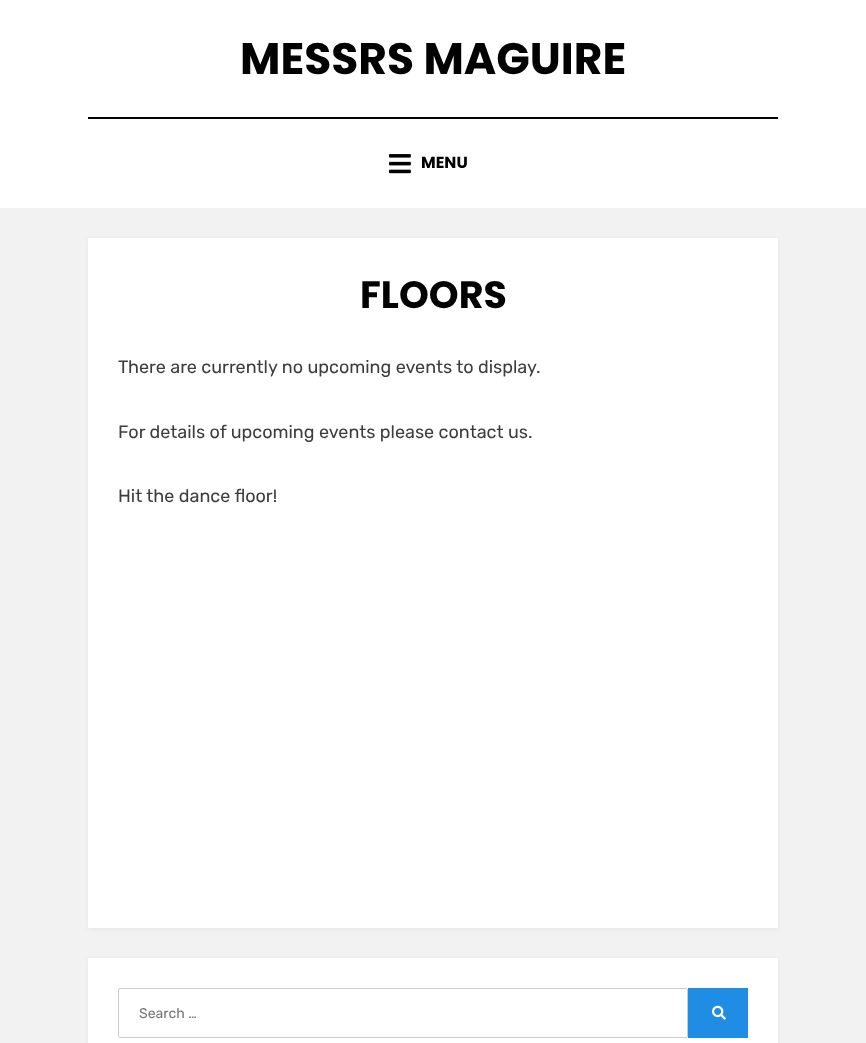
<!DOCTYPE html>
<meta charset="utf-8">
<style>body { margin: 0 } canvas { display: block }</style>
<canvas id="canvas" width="866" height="1043"></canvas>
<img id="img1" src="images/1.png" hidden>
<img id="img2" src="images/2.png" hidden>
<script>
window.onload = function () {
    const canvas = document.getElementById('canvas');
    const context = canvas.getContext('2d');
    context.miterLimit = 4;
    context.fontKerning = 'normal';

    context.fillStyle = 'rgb(242, 242, 242)';
    context.fillRect(0, 0, 866, 1043);
    context.fillStyle = 'rgb(255, 255, 255)';
    context.fillRect(0, 0, 866, 208);
    context.fillStyle = 'rgb(2, 2, 2)';
    context.fillRect(88, 117, 690, 2);
    context.drawImage(document.getElementById('img1'), 389, 154, 22, 20);
    context.fillStyle = 'rgba(0, 0, 1, 0.05)';
    context.filter = 'blur(2.5px)';
    context.beginPath();
    context.rect(88, 239, 690, 690);
    context.fill();
    context.filter = 'none';
    context.fillStyle = 'rgb(255, 255, 255)';
    context.fillRect(88, 238, 690, 690);
    context.fillStyle = 'rgba(0, 0, 1, 0.05)';
    context.filter = 'blur(2.5px)';
    context.beginPath();
    context.rect(88, 959, 690, 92);
    context.fill();
    context.filter = 'none';
    context.fillStyle = 'rgb(255, 255, 255)';
    context.fillRect(88, 958, 690, 85);
    context.beginPath();
    context.roundRect(118.5, 988.5, 569, 49, 1.5);
    context.strokeStyle = 'rgb(204, 204, 204)';
    context.stroke();
    context.fillStyle = 'rgb(32, 141, 229)';
    context.fillRect(688, 988, 60, 50);
    context.drawImage(document.getElementById('img2'), 712, 1005, 14, 15);
    context.font = 'bold 44px Poppins';
    context.fillStyle = 'rgb(2, 2, 2)';
    context.fillText('MESSRS MAGUIRE', 240, 74);
    context.font = 'bold 16px Poppins';
    context.fillText('MENU', 421, 168);
    context.font = 'bold 38px Poppins';
    context.fillText('FLOORS', 360, 308);
    context.font = '18px Rubik';
    context.fillStyle = 'rgb(61, 61, 61)';
    context.fillText('There are currently no upcoming events to display.', 118, 373);
    context.fillText('For details of upcoming events please contact us.', 118, 438);
    context.fillText('Hit the dance floor!', 118, 502);
    context.font = '14px Rubik';
    context.fillStyle = 'rgb(117, 117, 117)';
    context.fillText('Search …', 139, 1018);
};
</script>
